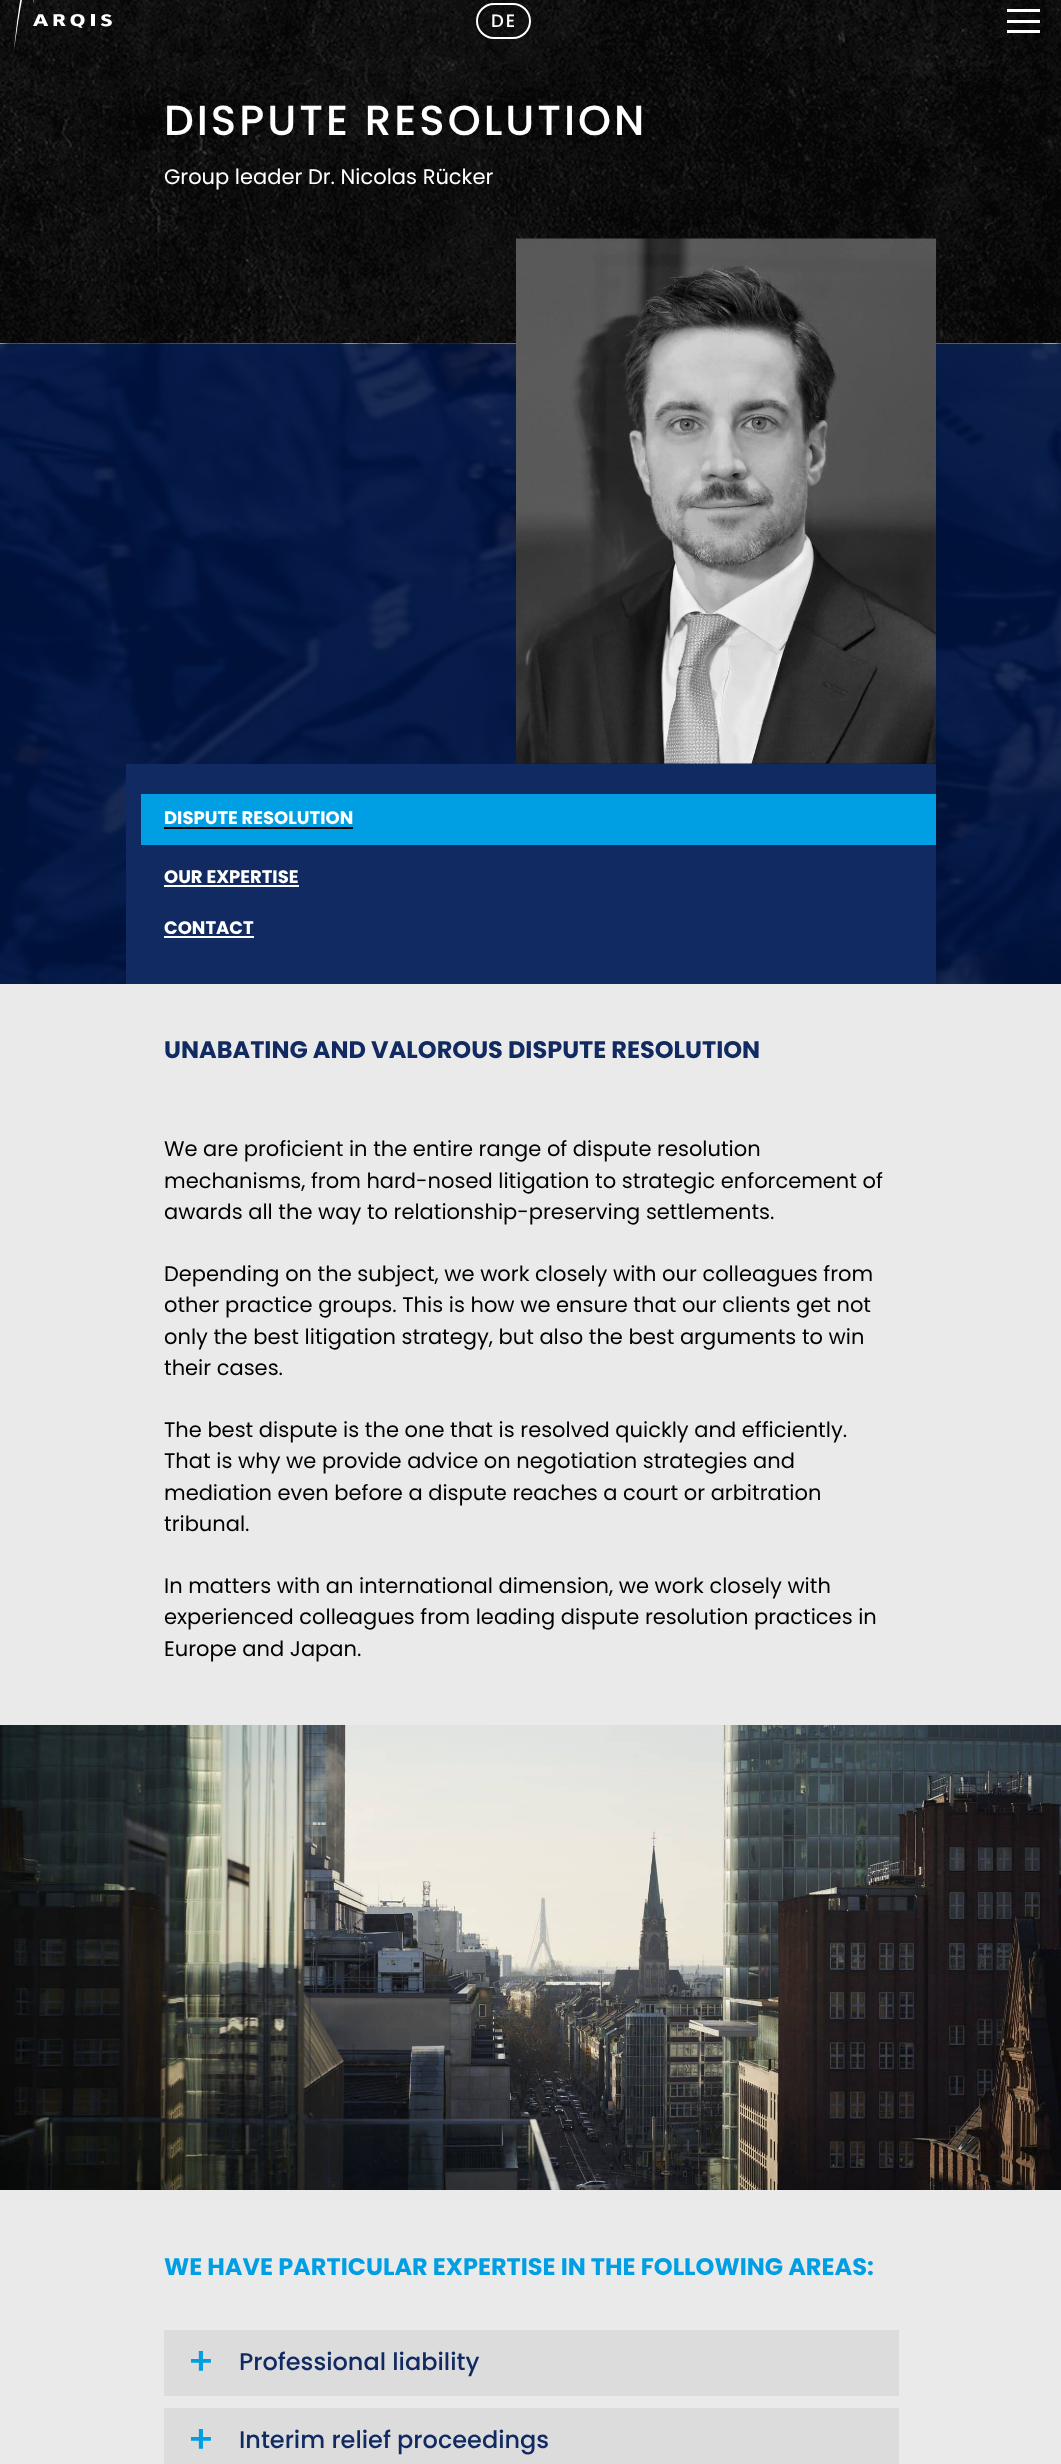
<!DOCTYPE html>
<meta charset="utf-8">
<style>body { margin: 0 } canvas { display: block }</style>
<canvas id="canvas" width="1061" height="2464"></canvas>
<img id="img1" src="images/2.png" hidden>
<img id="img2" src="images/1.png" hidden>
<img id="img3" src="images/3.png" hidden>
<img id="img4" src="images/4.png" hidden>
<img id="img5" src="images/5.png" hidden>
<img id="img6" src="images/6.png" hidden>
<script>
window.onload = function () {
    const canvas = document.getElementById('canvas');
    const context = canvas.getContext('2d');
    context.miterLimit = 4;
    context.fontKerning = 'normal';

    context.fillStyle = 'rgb(234, 234, 234)';
    context.fillRect(0, 0, 1061, 2464);
    context.drawImage(document.getElementById('img1'), 0, 0, 1061, 344);
    context.drawImage(document.getElementById('img2'), 14, 0, 98, 50);
    context.beginPath();
    context.roundRect(477, 4, 53, 34, 17);
    context.strokeStyle = 'rgb(255, 255, 255)';
    context.lineWidth = 2;
    context.stroke();
    context.fillStyle = 'rgb(255, 255, 255)';
    context.fillRect(1007, 9, 33, 3);
    context.fillRect(1007, 20, 33, 3);
    context.fillRect(1007, 30, 33, 3);
    context.drawImage(document.getElementById('img3'), 0, 343, 1061, 1);
    context.drawImage(document.getElementById('img4'), 0, 343, 1061, 641);
    context.drawImage(document.getElementById('img5'), 516, 238, 420, 526);
    context.fillStyle = 'rgb(17, 43, 98)';
    context.fillRect(126, 764, 810, 220);
    context.fillStyle = 'rgb(0, 159, 227)';
    context.fillRect(141, 794, 795, 51);
    context.fillStyle = 'rgb(0, 0, 0)';
    context.fillRect(164, 827, 189, 2);
    context.fillStyle = 'rgb(255, 255, 255)';
    context.fillRect(164, 885, 135, 2);
    context.fillRect(164, 936, 90, 2);
    context.drawImage(document.getElementById('img6'), 0, 1725, 1061, 465);
    context.fillStyle = 'rgb(220, 220, 220)';
    context.fillRect(164, 2330, 735, 66);
    context.fillRect(164, 2408, 735, 56);
    context.letterSpacing = '2px';
    context.font = '500 18px Poppins';
    context.fillStyle = 'rgb(255, 255, 255)';
    context.fillText('DE', 491, 27);
    context.letterSpacing = '3px';
    context.font = '500 42px Poppins';
    context.fillText('DISPUTE RESOLUTION', 164, 135);
    context.letterSpacing = '0px';
    context.font = '21px Poppins';
    context.fillText('Group leader Dr. Nicolas Rücker', 164, 184);
    context.font = 'bold 18px Poppins';
    context.fillText('DISPUTE RESOLUTION', 164, 824);
    context.fillText('OUR EXPERTISE', 164, 883);
    context.fillText('CONTACT', 164, 934);
    context.font = 'bold 24px Poppins';
    context.fillStyle = 'rgb(17, 43, 98)';
    context.fillText('UNABATING AND VALOROUS DISPUTE RESOLUTION', 164, 1058);
    context.font = '21px Poppins';
    context.fillStyle = 'rgb(0, 0, 0)';
    context.fillText('We are proficient in the entire range of dispute resolution', 164, 1156);
    context.fillText('mechanisms, from hard-nosed litigation to strategic enforcement of', 164, 1188);
    context.fillText('awards all the way to relationship-preserving settlements.', 164, 1219);
    context.fillText('Depending on the subject, we work closely with our colleagues from', 164, 1281);
    context.fillText('other practice groups. This is how we ensure that our clients get not', 164, 1312);
    context.fillText('only the best litigation strategy, but also the best arguments to win', 164, 1344);
    context.fillText('their cases.', 164, 1375);
    context.fillText('The best dispute is the one that is resolved quickly and efficiently.', 164, 1437);
    context.fillText('That is why we provide advice on negotiation strategies and', 164, 1468);
    context.fillText('mediation even before a dispute reaches a court or arbitration', 164, 1500);
    context.fillText('tribunal.', 164, 1531);
    context.fillText('In matters with an international dimension, we work closely with', 164, 1593);
    context.fillText('experienced colleagues from leading dispute resolution practices in', 164, 1624);
    context.fillText('Europe and Japan.', 164, 1656);
    context.font = 'bold 24px Poppins';
    context.fillStyle = 'rgb(0, 159, 227)';
    context.fillText('WE HAVE PARTICULAR EXPERTISE IN THE FOLLOWING AREAS:', 164, 2275);
    context.font = '500 39px Poppins';
    context.fillText('+', 187, 2375);
    context.font = '500 24px Poppins';
    context.fillStyle = 'rgb(17, 43, 98)';
    context.fillText('Professional liability', 239, 2370);
    context.font = '500 39px Poppins';
    context.fillStyle = 'rgb(0, 159, 227)';
    context.fillText('+', 187, 2453);
    context.font = '500 24px Poppins';
    context.fillStyle = 'rgb(17, 43, 98)';
    context.fillText('Interim relief proceedings', 239, 2448);
};
</script>
